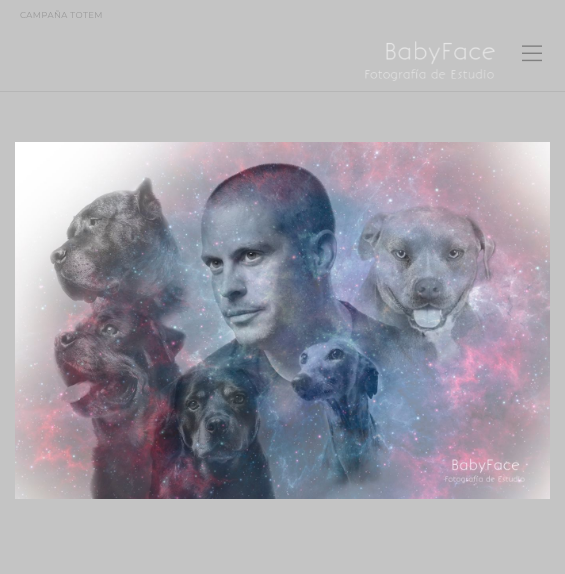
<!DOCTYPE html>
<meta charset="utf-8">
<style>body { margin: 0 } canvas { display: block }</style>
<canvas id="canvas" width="565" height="574"></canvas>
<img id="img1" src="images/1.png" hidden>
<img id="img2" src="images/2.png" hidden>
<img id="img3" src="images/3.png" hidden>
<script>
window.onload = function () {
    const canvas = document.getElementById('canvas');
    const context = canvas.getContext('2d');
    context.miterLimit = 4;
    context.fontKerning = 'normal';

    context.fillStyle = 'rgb(196, 196, 196)';
    context.fillRect(0, 0, 565, 574);
    context.fillStyle = 'rgb(182, 182, 182)';
    context.fillRect(0, 91, 565, 1);
    context.drawImage(document.getElementById('img1'), 365, 41, 130, 40);
    context.drawImage(document.getElementById('img2'), 522, 45, 20, 17);
    context.drawImage(document.getElementById('img3'), 15, 142, 535, 357);
    context.letterSpacing = '0.4px';
    context.font = '8.5px Montserrat';
    context.fillStyle = 'rgb(155, 155, 155)';
    context.fillText('CAMPAÑA TOTEM', 20, 18);
};
</script>
